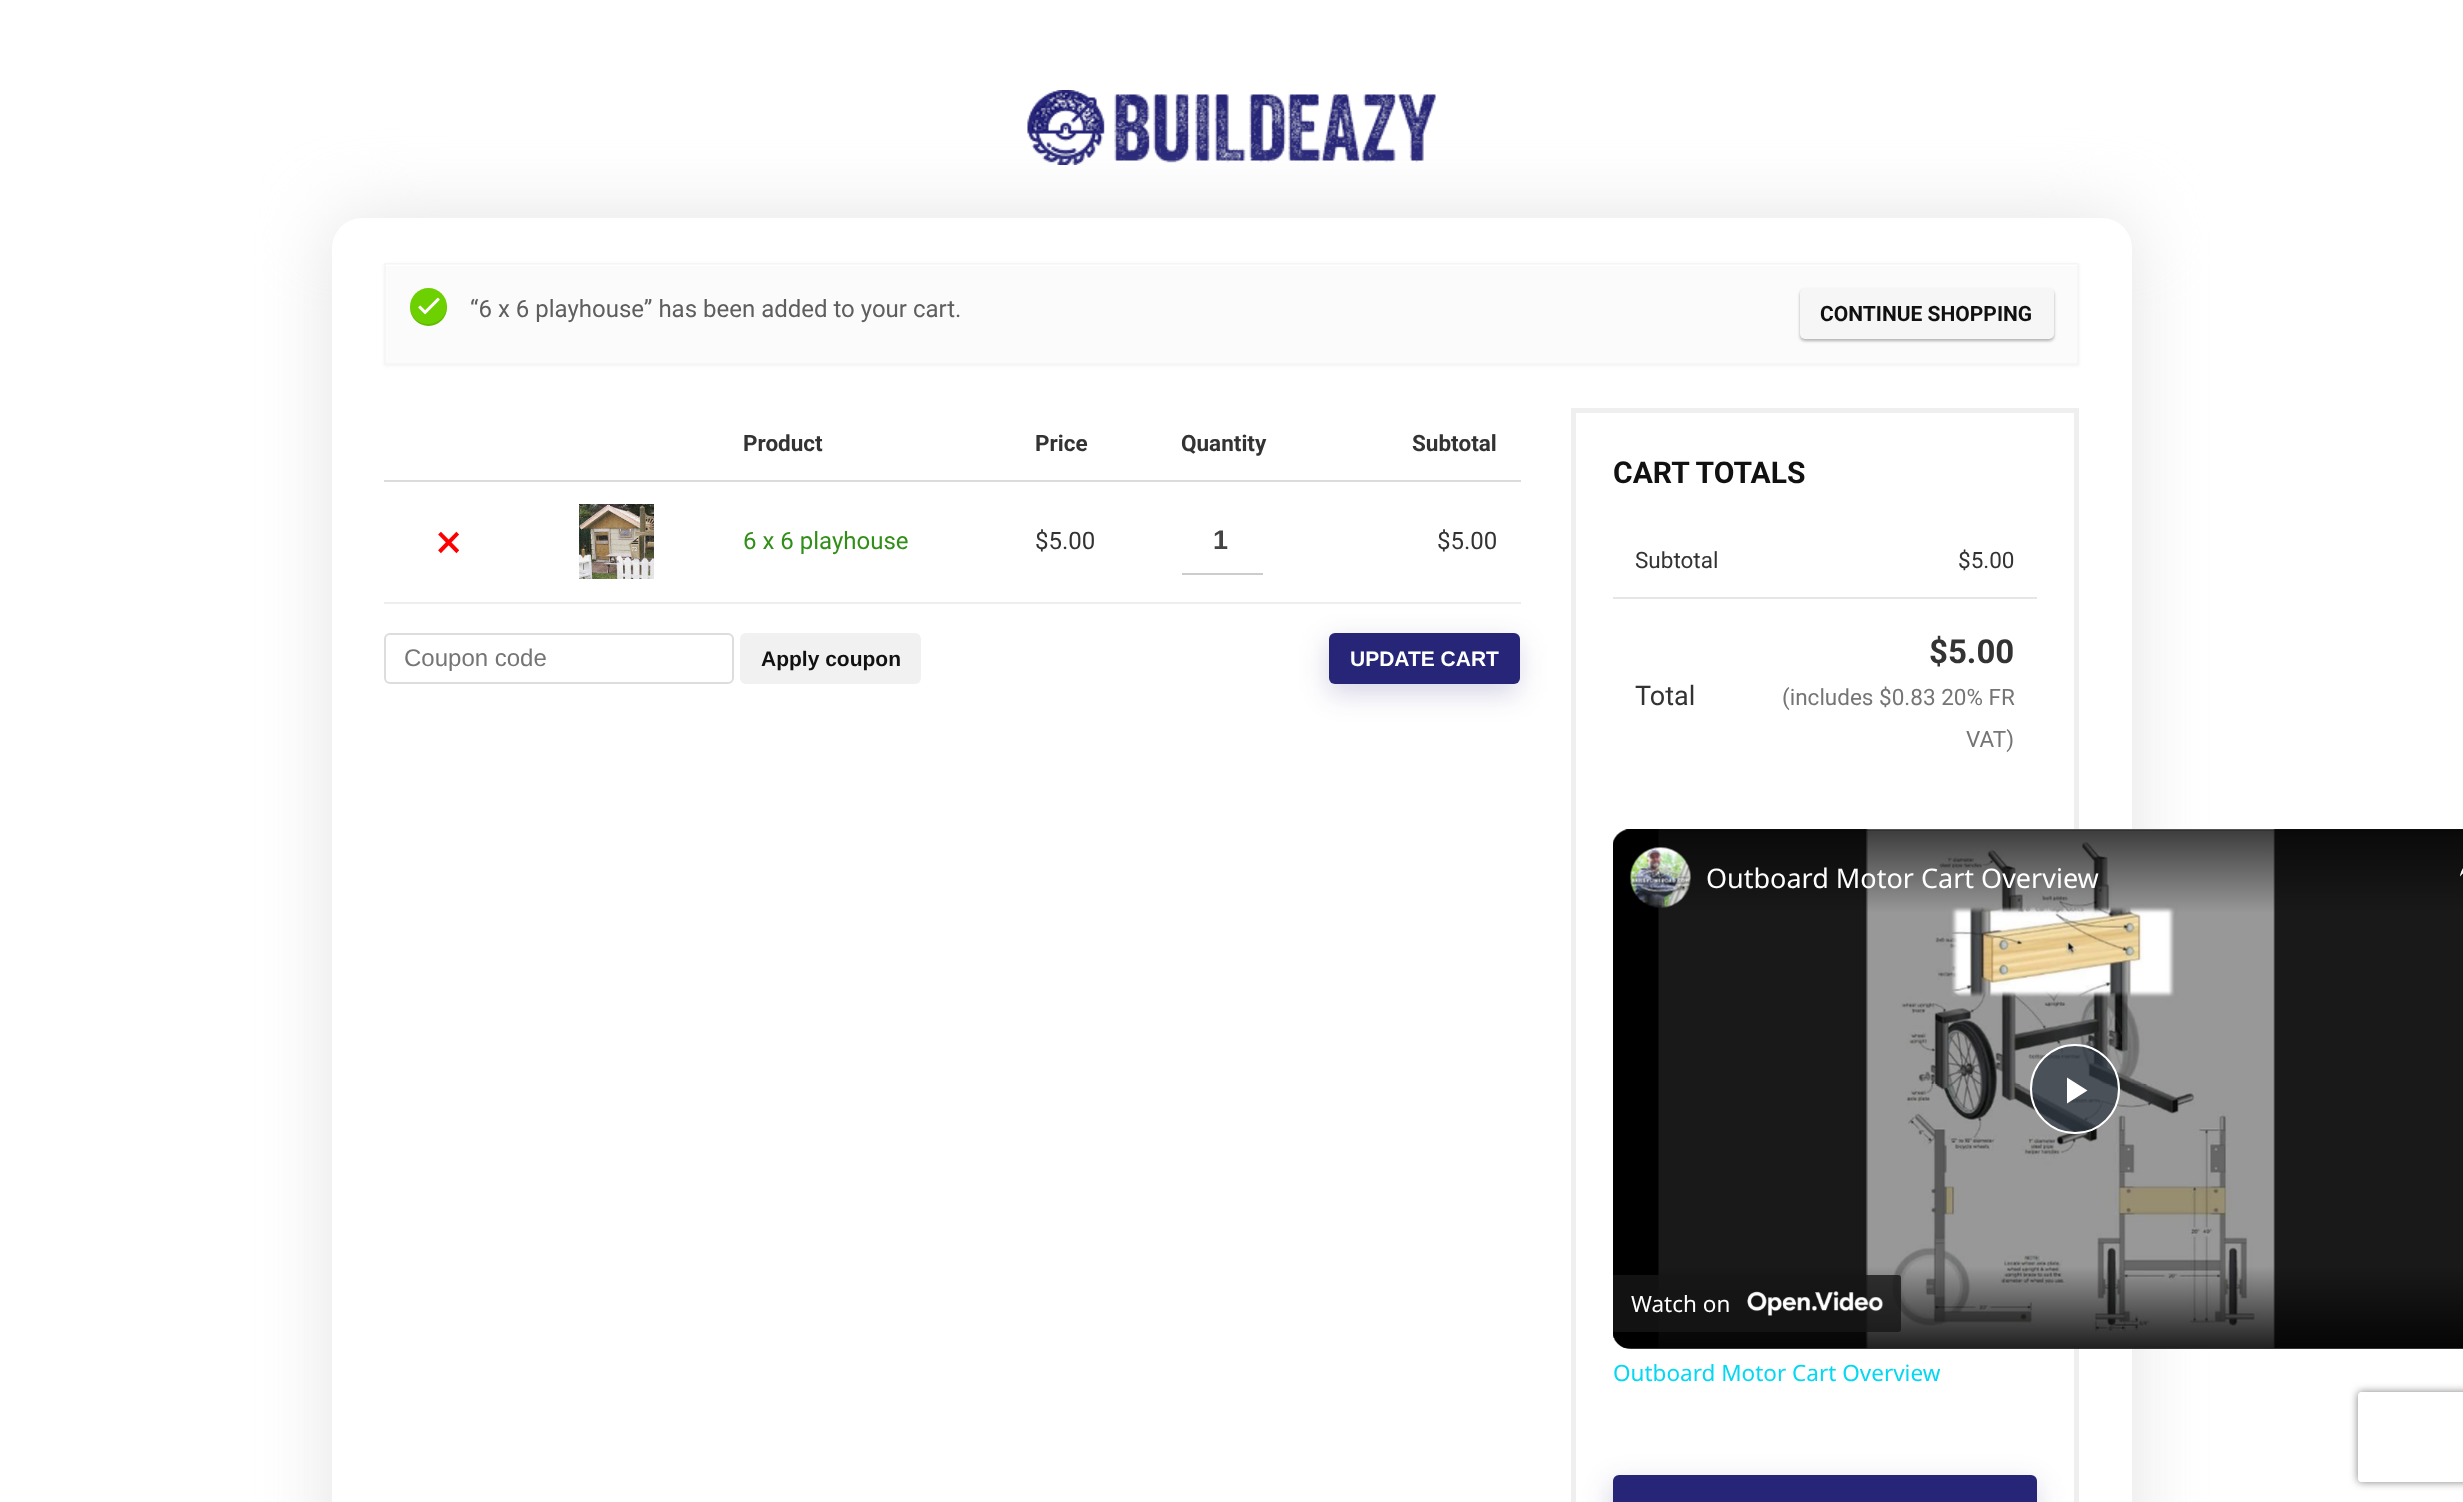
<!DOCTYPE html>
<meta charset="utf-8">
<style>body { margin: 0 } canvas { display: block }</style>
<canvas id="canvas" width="2463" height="1502"></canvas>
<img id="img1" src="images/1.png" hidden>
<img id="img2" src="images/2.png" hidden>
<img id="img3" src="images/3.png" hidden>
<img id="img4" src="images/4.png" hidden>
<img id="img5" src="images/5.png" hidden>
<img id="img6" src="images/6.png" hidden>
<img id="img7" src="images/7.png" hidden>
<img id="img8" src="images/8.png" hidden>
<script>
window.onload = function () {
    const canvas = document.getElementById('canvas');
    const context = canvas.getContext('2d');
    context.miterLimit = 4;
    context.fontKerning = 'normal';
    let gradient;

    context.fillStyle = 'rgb(255, 255, 255)';
    context.fillRect(0, 0, 2463, 1502);
    context.drawImage(document.getElementById('img1'), 1027, 90, 409, 75);
    context.fillStyle = 'rgb(227, 227, 227)';
    context.filter = 'blur(37.5px)';
    context.beginPath();
    context.roundRect(332, 218, 1800, 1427, 30);
    context.fill();
    context.filter = 'none';
    context.fillStyle = 'rgb(255, 255, 255)';
    context.beginPath();
    context.roundRect(332, 218, 1800, 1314, 30);
    context.fill();
    context.fillStyle = 'rgba(0, 0, 0, 0.05)';
    context.filter = 'blur(1.5px)';
    context.beginPath();
    context.rect(384, 264, 1695, 102);
    context.fill();
    context.filter = 'none';
    context.fillStyle = 'rgb(252, 251, 252)';
    context.fillRect(384, 264, 1695, 101);
    context.fillStyle = 'rgb(255, 255, 255)';
    context.fillRect(386, 264, 1692, 2);
    context.strokeStyle = 'rgba(238, 238, 238, 0.33)';
    context.lineWidth = 2;
    context.strokeRect(385, 264, 1693, 100);
    context.fillStyle = 'rgb(109, 208, 0)';
    context.beginPath();
    context.roundRect(410, 288, 37, 38, 18.5);
    context.fill();
    context.fillStyle = 'rgba(0, 0, 0, 0.1)';
    context.beginPath();
    context.moveTo(446.5, 303);
    context.bezierCurveTo(449, 329, 411, 332, 410, 306);
    context.bezierCurveTo(409, 327.5, 437.5, 333.5, 445.5, 314.5);
    context.bezierCurveTo(447, 311, 447.5, 307, 446.5, 303);
    context.closePath();
    context.fill();
    context.drawImage(document.getElementById('img2'), 418, 297, 22, 18);
    context.fillStyle = 'rgba(0, 0, 0, 0.08)';
    context.filter = 'blur(1.5px)';
    context.beginPath();
    context.roundRect(1800, 290, 254, 51, 5);
    context.fill();
    context.filter = 'none';
    context.fillStyle = 'rgba(60, 64, 67, 0.3)';
    context.filter = 'blur(1.5px)';
    context.beginPath();
    context.roundRect(1800, 290, 254, 51, 5);
    context.fill();
    context.filter = 'none';
    context.fillStyle = 'rgb(246, 246, 246)';
    context.beginPath();
    context.roundRect(1800, 288, 254, 51, 5);
    context.fill();
    context.fillStyle = 'rgb(219, 219, 219)';
    context.fillRect(384, 480, 1137, 2);
    context.drawImage(document.getElementById('img3'), 579, 504, 75, 75);
    context.fillStyle = 'rgb(204, 204, 204)';
    context.fillRect(1182, 573, 81, 2);
    context.fillStyle = 'rgb(238, 238, 238)';
    context.fillRect(384, 602, 1137, 2);
    context.beginPath();
    context.roundRect(385, 634, 348, 49, 5);
    context.strokeStyle = 'rgb(221, 221, 221)';
    context.stroke();
    context.fillStyle = 'rgb(241, 241, 241)';
    context.beginPath();
    context.roundRect(740, 633, 181, 51, 6);
    context.fill();
    context.fillStyle = 'rgba(38, 37, 120, 0.2)';
    context.filter = 'blur(14px)';
    context.beginPath();
    context.roundRect(1328, 642, 190, 51, 6);
    context.fill();
    context.filter = 'none';
    context.fillStyle = 'rgb(38, 37, 120)';
    context.beginPath();
    context.roundRect(1329, 633, 191, 51, 6);
    context.fill();
    context.strokeStyle = 'rgb(239, 239, 239)';
    context.lineWidth = 5;
    context.strokeRect(1573.5, 410.5, 503, 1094);
    context.fillStyle = 'rgb(230, 230, 230)';
    context.fillRect(1613, 597, 424, 2);
    context.drawImage(document.getElementById('img4'), 1613, 829, 850, 519);
    context.drawImage(document.getElementById('img5'), 1613, 829, 18, 519);
    context.fillStyle = 'rgba(43, 51, 63, 0.7)';
    context.beginPath();
    context.arc(2075, 1089, 44, 0, 2 * Math.PI);
    context.fill();
    context.strokeStyle = 'rgb(255, 255, 255)';
    context.lineWidth = 2;
    context.stroke();
    context.fillStyle = 'rgb(255, 255, 255)';
    context.beginPath();
    context.moveTo(2067, 1077.5);
    context.lineTo(2067, 1103.5);
    context.lineTo(2087.5, 1090.5);
    context.closePath();
    context.fill();
    gradient = context.createLinearGradient(2074, 830, 2074, 1349);
    gradient.addColorStop(0, 'rgba(0, 0, 0, 0.6)');
    gradient.addColorStop(0.16, 'rgba(0, 0, 0, 0)');
    gradient.addColorStop(0.84, 'rgba(0, 0, 0, 0)');
    gradient.addColorStop(1, 'rgba(0, 0, 0, 0.8)');
    context.fillStyle = gradient;
    context.beginPath();
    context.roundRect(1613, 830, 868, 519, 18);
    context.fill();
    context.drawImage(document.getElementById('img6'), 1630, 847, 61, 61);
    context.drawImage(document.getElementById('img7'), 2460, 868, 3, 9);
    context.fillStyle = 'rgba(23, 23, 23, 0.8)';
    context.beginPath();
    context.roundRect(1613, 1275, 288, 57, [0, 3, 3, 0]);
    context.fill();
    context.drawImage(document.getElementById('img8'), 1747, 1291, 136, 25);
    context.fillStyle = 'rgba(38, 37, 120, 0.2)';
    context.filter = 'blur(14px)';
    context.beginPath();
    context.roundRect(1611, 1484, 425, 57, 6);
    context.fill();
    context.filter = 'none';
    context.fillStyle = 'rgb(38, 37, 120)';
    context.beginPath();
    context.roundRect(1613, 1475, 424, 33, 6);
    context.fill();
    context.save();
    context.beginPath();
    context.moveTo(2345, 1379);
    context.lineTo(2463, 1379);
    context.lineTo(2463, 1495);
    context.lineTo(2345, 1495);
    context.closePath();
    context.moveTo(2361, 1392);
    context.lineTo(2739, 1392);
    context.bezierCurveTo(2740.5, 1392, 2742, 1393.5, 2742, 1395);
    context.lineTo(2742, 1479);
    context.bezierCurveTo(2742, 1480.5, 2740.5, 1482, 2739, 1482);
    context.lineTo(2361, 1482);
    context.bezierCurveTo(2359.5, 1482, 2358, 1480.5, 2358, 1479);
    context.lineTo(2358, 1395);
    context.bezierCurveTo(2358, 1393.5, 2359.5, 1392, 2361, 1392);
    context.closePath();
    context.clip('evenodd');
    context.fillStyle = 'rgb(128, 128, 128)';
    context.filter = 'blur(4px)';
    context.beginPath();
    context.roundRect(2358, 1392, 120, 90, 3);
    context.fill();
    context.filter = 'none';
    context.restore();
    context.font = '24px Roboto';
    context.fillStyle = 'rgb(94, 94, 94)';
    context.fillText('“6 x 6 playhouse” has been added to your cart.', 470, 317);
    context.font = 'bold 21px Roboto';
    context.fillStyle = 'rgb(17, 17, 17)';
    context.fillText('CONTINUE SHOPPING', 1820, 321);
    context.font = 'bold 22.5px Roboto';
    context.fillStyle = 'rgb(51, 51, 51)';
    context.fillText('Product', 743, 451);
    context.fillText('Price', 1035, 451);
    context.fillText('Quantity', 1181, 451);
    context.fillText('Subtotal', 1412, 451);
    context.font = '48px Roboto';
    context.fillStyle = 'rgb(255, 0, 0)';
    context.fillText('×', 436, 558);
    context.font = '24px Roboto';
    context.fillStyle = 'rgb(49, 143, 24)';
    context.fillText('6 x 6 playhouse', 743, 549);
    context.fillStyle = 'rgb(51, 51, 51)';
    context.fillText('$5.00', 1035, 549);
    context.font = 'bold 27px Liberation Sans';
    context.fillStyle = 'rgb(68, 68, 68)';
    context.fillText('1', 1213, 549);
    context.font = '24px Roboto';
    context.fillStyle = 'rgb(51, 51, 51)';
    context.fillText('$5.00', 1437, 549);
    context.font = '24px Liberation Sans';
    context.fillStyle = 'rgb(117, 117, 117)';
    context.fillText('Coupon code', 404, 666);
    context.font = 'bold 21px Liberation Sans';
    context.fillStyle = 'rgb(17, 17, 17)';
    context.fillText('Apply coupon', 761, 666);
    context.fillStyle = 'rgb(255, 255, 255)';
    context.fillText('UPDATE CART', 1350, 666);
    context.font = 'bold 30px Roboto';
    context.fillStyle = 'rgb(17, 17, 17)';
    context.fillText('CART TOTALS', 1613, 483);
    context.font = '22.5px Roboto';
    context.fillStyle = 'rgb(51, 51, 51)';
    context.fillText('Subtotal', 1635, 568);
    context.fillText('$5.00', 1958, 568);
    context.font = '27px Roboto';
    context.fillText('Total', 1635, 705);
    context.font = 'bold 33px Roboto';
    context.fillText('$5.00', 1929, 663);
    context.font = '22.5px Roboto';
    context.fillStyle = 'rgb(117, 117, 117)';
    context.fillText('(includes $0.83 20% FR', 1782, 705);
    context.fillText('VAT)', 1966, 747);
    context.font = '27px Noto Sans';
    context.fillStyle = 'rgb(255, 255, 255)';
    context.fillText('Outboard Motor Cart Overview', 1706, 888);
    context.font = '22.5px Noto Sans';
    context.fillText('Watch on', 1631, 1312);
    context.fillStyle = 'rgb(3, 216, 243)';
    context.fillText('Outboard Motor Cart Overview', 1613, 1381);
};
</script>
